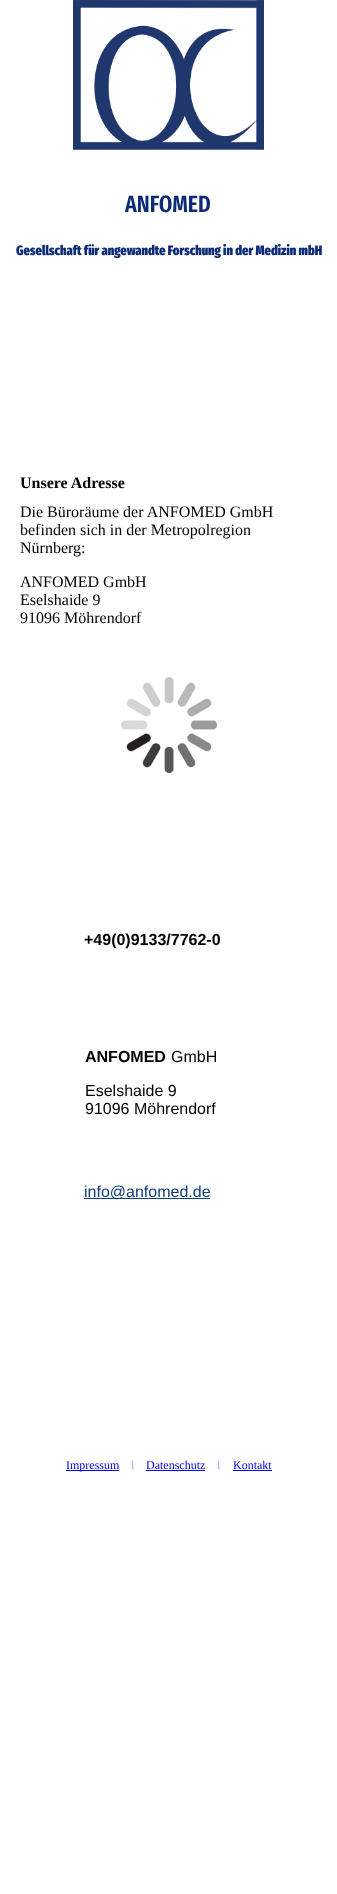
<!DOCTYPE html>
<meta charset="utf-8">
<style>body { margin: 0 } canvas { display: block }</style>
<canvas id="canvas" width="337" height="1894"></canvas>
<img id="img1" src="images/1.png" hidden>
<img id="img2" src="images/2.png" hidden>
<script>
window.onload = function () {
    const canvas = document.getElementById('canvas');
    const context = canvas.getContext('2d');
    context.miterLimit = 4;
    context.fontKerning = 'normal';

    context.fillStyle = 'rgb(255, 255, 255)';
    context.fillRect(0, 0, 337, 1894);
    context.drawImage(document.getElementById('img1'), 73, 0, 191, 150);
    context.drawImage(document.getElementById('img2'), 121, 677, 96, 96);
    context.fillStyle = 'rgb(14, 63, 119)';
    context.fillRect(84, 1198, 126, 1);
    context.fillStyle = 'rgb(0, 0, 238)';
    context.fillRect(66, 1470, 53, 1);
    context.fillRect(146, 1470, 59, 1);
    context.fillRect(233, 1470, 39, 1);
    context.font = '600 23.5px Fira Sans Extra Condensed';
    context.fillStyle = 'rgb(14, 43, 119)';
    context.fillText('ANFOMED', 125, 212);
    context.font = '900 13.5px Fira Sans Extra Condensed';
    context.fillText('Gesellschaft für angewandte Forschung in der Medizin mbH', 16, 255);
    context.font = 'bold 16px Liberation Serif';
    context.fillStyle = 'rgb(0, 0, 0)';
    context.fillText('Unsere Adresse', 20, 488);
    context.font = '16px Liberation Serif';
    context.fillText('Die Büroräume der ANFOMED GmbH', 20, 517);
    context.fillText('befinden sich in der Metropolregion', 20, 535);
    context.fillText('Nürnberg:', 20, 553);
    context.fillText('ANFOMED GmbH', 20, 587);
    context.fillText('Eselshaide 9', 20, 605);
    context.fillText('91096 Möhrendorf', 20, 623);
    context.font = 'bold 16px Liberation Sans';
    context.fillText('+49(0)9133/7762-0', 84, 945);
    context.fillText('ANFOMED', 85, 1062);
    context.font = '16px Liberation Sans';
    context.fillText('GmbH', 171, 1062);
    context.fillText('Eselshaide 9', 85, 1096);
    context.fillText('91096 Möhrendorf', 85, 1114);
    context.fillStyle = 'rgb(14, 63, 119)';
    context.fillText('info@anfomed.de', 84, 1197);
    context.font = '12px Liberation Serif';
    context.fillStyle = 'rgb(0, 0, 238)';
    context.fillText('Impressum', 66, 1469);
    context.fillStyle = 'rgb(143, 175, 254)';
    context.fillText('l', 131, 1469);
    context.fillStyle = 'rgb(0, 0, 238)';
    context.fillText('Datenschutz', 146, 1469);
    context.fillStyle = 'rgb(143, 175, 254)';
    context.fillText('l', 217, 1469);
    context.fillStyle = 'rgb(0, 0, 238)';
    context.fillText('Kontakt', 233, 1469);
};
</script>
